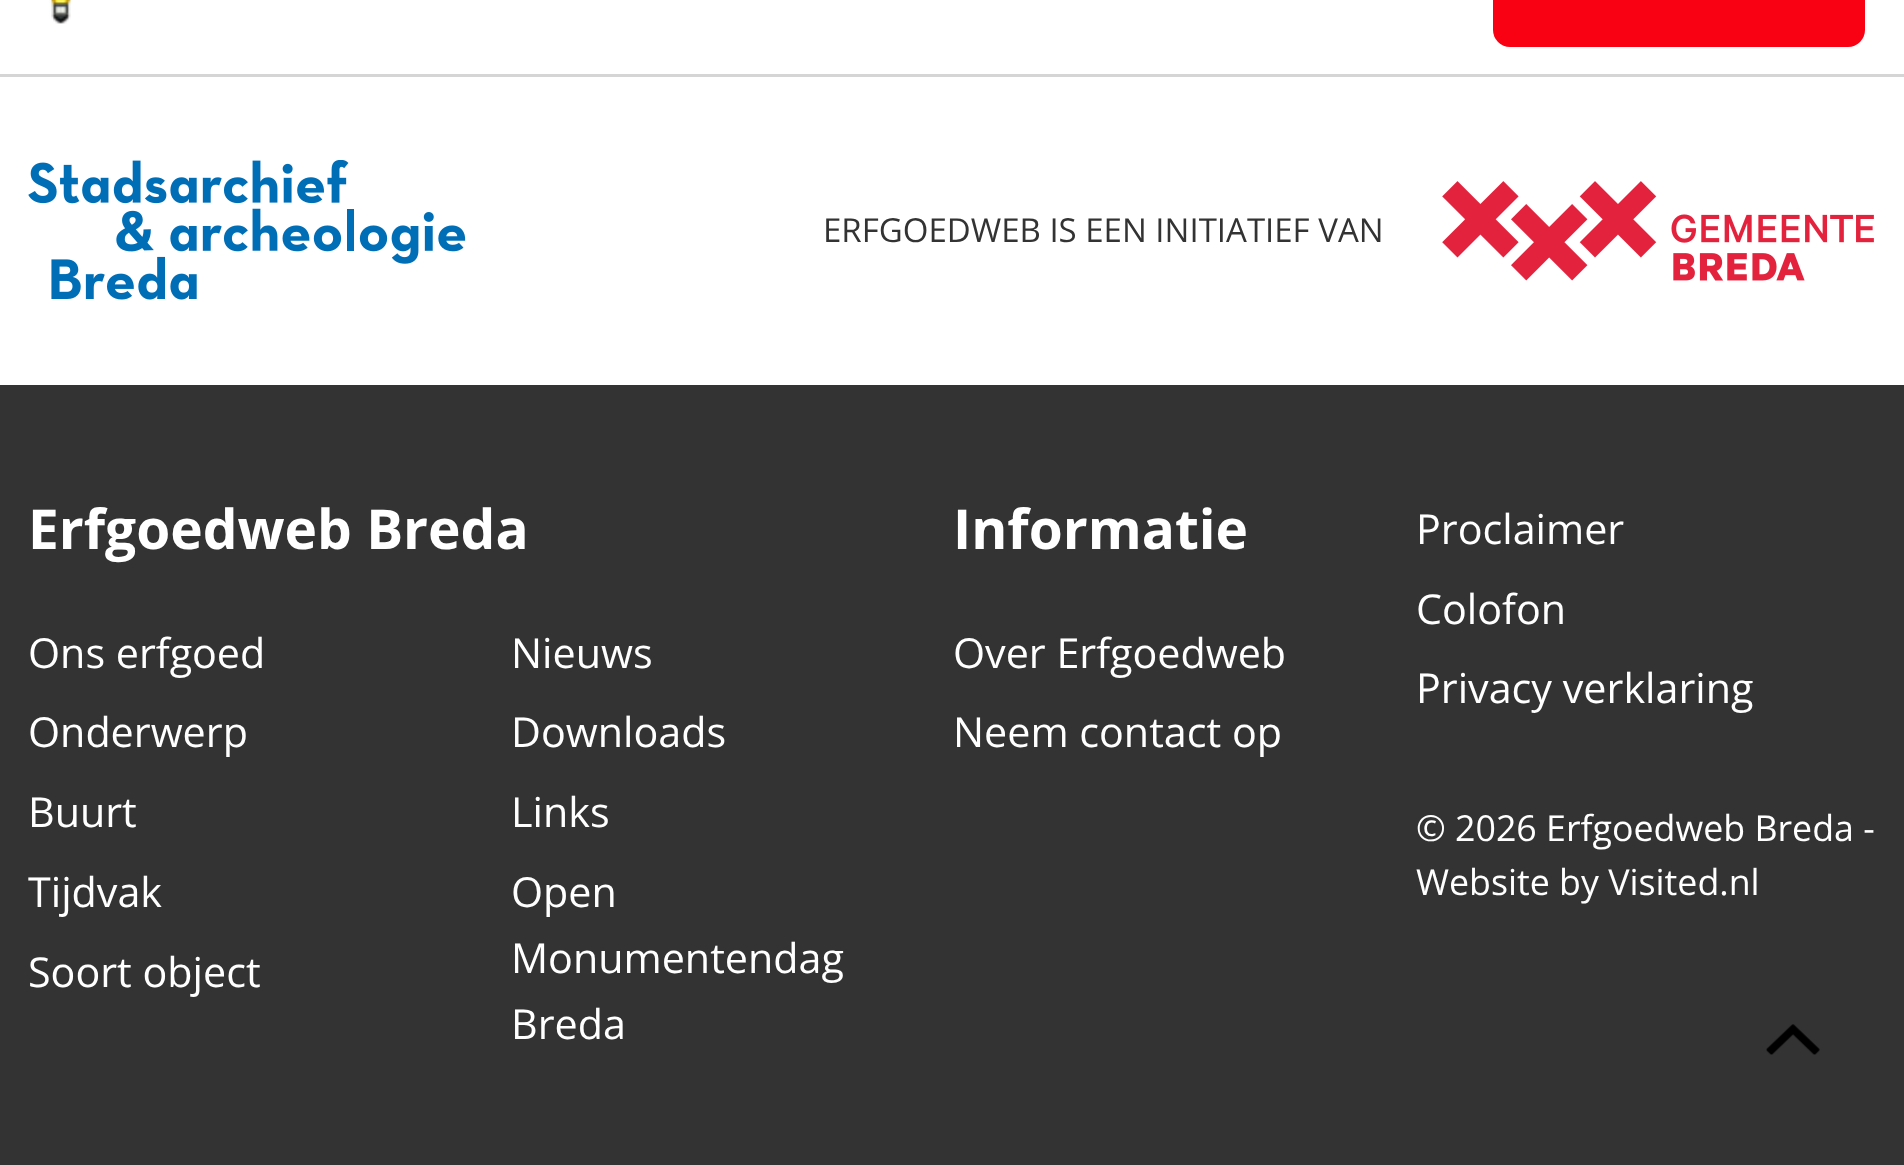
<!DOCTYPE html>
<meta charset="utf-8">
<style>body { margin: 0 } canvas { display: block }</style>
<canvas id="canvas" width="1904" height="1165"></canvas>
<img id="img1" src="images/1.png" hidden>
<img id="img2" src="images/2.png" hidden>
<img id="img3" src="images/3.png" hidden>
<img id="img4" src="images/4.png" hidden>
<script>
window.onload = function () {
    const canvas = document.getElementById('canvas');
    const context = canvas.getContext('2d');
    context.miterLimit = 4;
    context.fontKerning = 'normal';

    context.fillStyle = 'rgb(255, 255, 255)';
    context.fillRect(0, 0, 1904, 1165);
    context.drawImage(document.getElementById('img1'), 49, 0, 22, 24);
    context.fillStyle = 'rgb(250, 0, 19)';
    context.beginPath();
    context.roundRect(1493, -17, 372, 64, 17);
    context.fill();
    context.fillStyle = 'rgb(213, 213, 213)';
    context.fillRect(0, 74, 1904, 3);
    context.drawImage(document.getElementById('img2'), 28, 160, 438, 140);
    context.drawImage(document.getElementById('img3'), 1442, 181, 432, 100);
    context.fillStyle = 'rgb(51, 51, 51)';
    context.fillRect(0, 385, 1904, 780);
    context.drawImage(document.getElementById('img4'), 1766, 1024, 54, 31);
    context.font = '33px Open Sans';
    context.fillText('ERFGOEDWEB IS EEN INITIATIEF VAN', 823, 242);
    context.font = 'bold 55px Open Sans';
    context.fillStyle = 'rgb(255, 255, 255)';
    context.fillText('Erfgoedweb Breda', 28, 549);
    context.font = '41.25px Open Sans';
    context.fillText('Ons erfgoed', 28, 668);
    context.fillText('Nieuws', 511, 668);
    context.fillText('Onderwerp', 28, 747);
    context.fillText('Downloads', 511, 747);
    context.fillText('Buurt', 28, 827);
    context.fillText('Links', 511, 827);
    context.fillText('Tijdvak', 28, 907);
    context.fillText('Open', 511, 907);
    context.fillText('Monumentendag', 511, 973);
    context.fillText('Breda', 511, 1039);
    context.fillText('Soort object', 28, 987);
    context.font = 'bold 55px Open Sans';
    context.fillText('Informatie', 953, 549);
    context.font = '41.25px Open Sans';
    context.fillText('Over Erfgoedweb', 953, 668);
    context.fillText('Neem contact op', 953, 747);
    context.fillText('Proclaimer', 1416, 544);
    context.fillText('Colofon', 1416, 624);
    context.fillText('Privacy verklaring', 1416, 703);
    context.font = '35.75px Open Sans';
    context.fillText('© 2026 Erfgoedweb Breda -', 1416, 841);
    context.fillText('Website by Visited.nl', 1416, 895);
};
</script>
